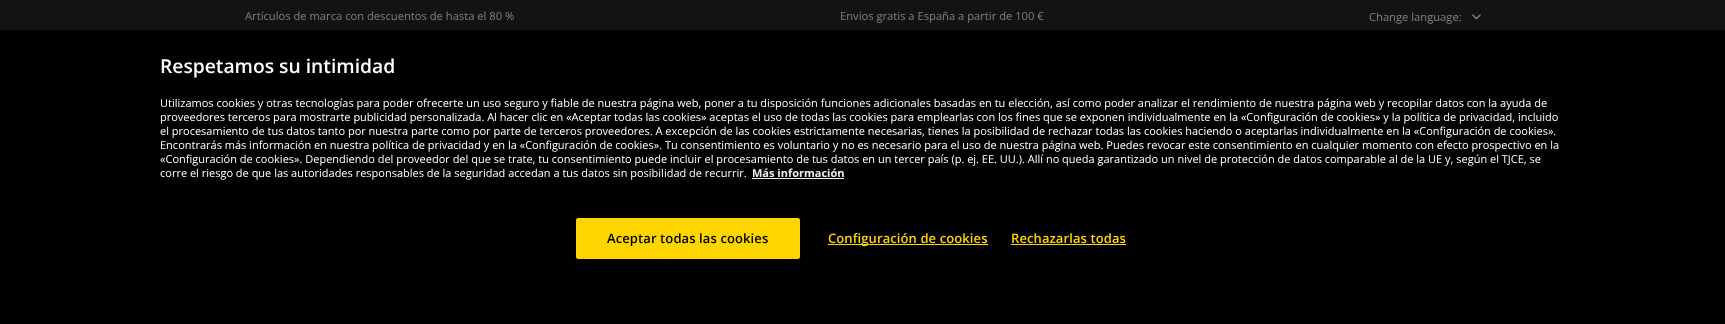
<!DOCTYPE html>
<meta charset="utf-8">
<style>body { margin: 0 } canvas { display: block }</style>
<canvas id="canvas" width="1725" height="324"></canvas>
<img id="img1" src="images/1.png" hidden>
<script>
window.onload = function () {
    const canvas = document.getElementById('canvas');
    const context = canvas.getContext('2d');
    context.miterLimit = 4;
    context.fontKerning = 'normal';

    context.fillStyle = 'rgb(0, 0, 0)';
    context.fillRect(0, 0, 1725, 324);
    context.fillStyle = 'rgb(19, 19, 19)';
    context.fillRect(0, 0, 1725, 30);
    context.drawImage(document.getElementById('img1'), 1472, 14, 9, 6);
    context.fillStyle = 'rgb(237, 237, 237)';
    context.fillRect(752, 178, 92, 1);
    context.fillStyle = 'rgb(255, 213, 0)';
    context.beginPath();
    context.roundRect(576.5, 218.5, 223, 40, 1.5);
    context.fill();
    context.strokeStyle = 'rgb(255, 213, 0)';
    context.stroke();
    context.fillRect(828, 244, 160, 1);
    context.fillRect(1011, 244, 115, 1);
    context.font = '11.2px Open Sans';
    context.fillStyle = 'rgb(128, 128, 128)';
    context.fillText('Artículos de marca con descuentos de hasta el 80 %', 245, 20);
    context.fillText('Envíos gratis a España a partir de 100 €', 840, 20);
    context.fillText('Change language:', 1369, 21);
    context.font = '600 19.25px Open Sans';
    context.fillStyle = 'rgb(255, 255, 255)';
    context.fillText('Respetamos su intimidad', 160, 73);
    context.font = '11px Open Sans';
    context.fillText('Utilizamos cookies y otras tecnologías para poder ofrecerte un uso seguro y fiable de nuestra página web, poner a tu disposición funciones adicionales basadas en tu elección, así como poder analizar el rendimiento de nuestra página web y recopilar datos con la ayuda de', 160, 107);
    context.fillText('proveedores terceros para mostrarte publicidad personalizada. Al hacer clic en «Aceptar todas las cookies» aceptas el uso de todas las cookies para emplearlas con los fines que se exponen individualmente en la «Configuración de cookies» y la política de privacidad, incluido', 160, 121);
    context.fillText('el procesamiento de tus datos tanto por nuestra parte como por parte de terceros proveedores. A excepción de las cookies estrictamente necesarias, tienes la posibilidad de rechazar todas las cookies haciendo o aceptarlas individualmente en la «Configuración de cookies».', 160, 135);
    context.fillText('Encontrarás más información en nuestra política de privacidad y en la «Configuración de cookies». Tu consentimiento es voluntario y no es necesario para el uso de nuestra página web. Puedes revocar este consentimiento en cualquier momento con efecto prospectivo en la', 160, 149);
    context.fillText('«Configuración de cookies». Dependiendo del proveedor del que se trate, tu consentimiento puede incluir el procesamiento de tus datos en un tercer país (p. ej. EE. UU.). Allí no queda garantizado un nivel de protección de datos comparable al de la UE y, según el TJCE, se', 160, 163);
    context.fillText('corre el riesgo de que las autoridades responsables de la seguridad accedan a tus datos sin posibilidad de recurrir.', 160, 177);
    context.font = 'bold 11px Open Sans';
    context.fillStyle = 'rgb(237, 237, 237)';
    context.fillText('Más información', 752, 177);
    context.letterSpacing = '0.1px';
    context.font = '600 13px Open Sans';
    context.fillStyle = 'rgb(0, 0, 0)';
    context.fillText('Aceptar todas las cookies', 607, 243);
    context.fillStyle = 'rgb(255, 213, 0)';
    context.fillText('Configuración de cookies', 828, 243);
    context.fillText('Rechazarlas todas', 1011, 243);
};
</script>
